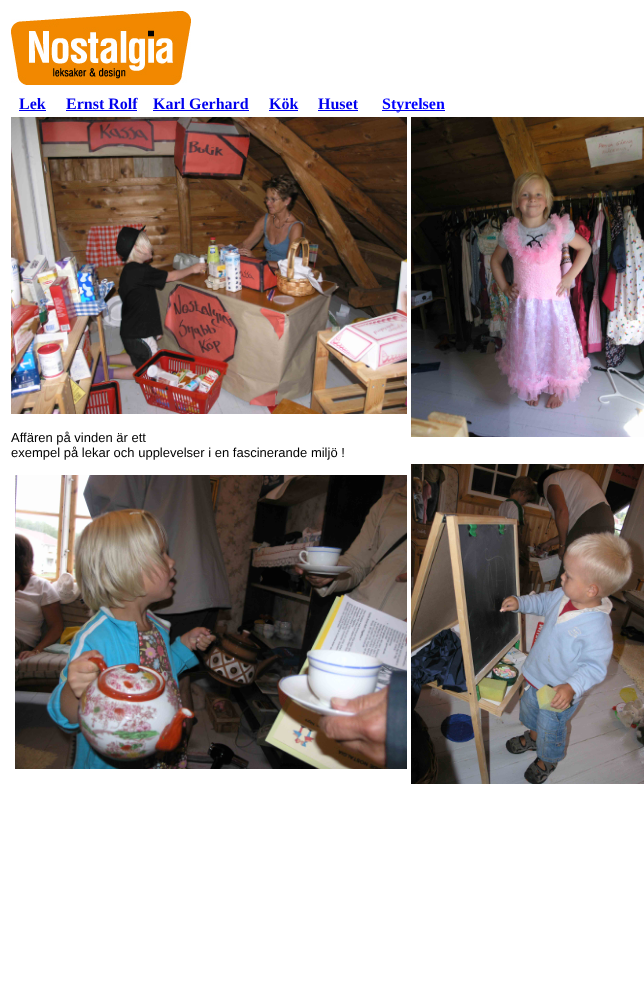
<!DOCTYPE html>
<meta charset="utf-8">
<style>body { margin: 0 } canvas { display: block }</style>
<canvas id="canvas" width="644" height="991"></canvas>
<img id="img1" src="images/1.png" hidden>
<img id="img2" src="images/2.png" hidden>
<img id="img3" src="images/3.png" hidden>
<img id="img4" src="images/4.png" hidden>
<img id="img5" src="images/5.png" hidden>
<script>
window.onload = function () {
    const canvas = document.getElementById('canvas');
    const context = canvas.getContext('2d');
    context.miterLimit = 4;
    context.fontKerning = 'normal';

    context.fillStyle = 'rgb(255, 255, 255)';
    context.fillRect(0, 0, 644, 991);
    context.drawImage(document.getElementById('img1'), 11, 11, 180, 74);
    context.fillStyle = 'rgb(0, 0, 238)';
    context.fillRect(19, 110, 27, 1);
    context.fillRect(66, 110, 71, 1);
    context.fillRect(153, 110, 96, 1);
    context.fillRect(269, 110, 29, 1);
    context.fillRect(318, 110, 40, 1);
    context.fillRect(382, 110, 63, 1);
    context.drawImage(document.getElementById('img2'), 411, 117, 233, 320);
    context.drawImage(document.getElementById('img3'), 11, 117, 396, 297);
    context.drawImage(document.getElementById('img4'), 15, 475, 392, 294);
    context.drawImage(document.getElementById('img5'), 411, 464, 233, 320);
    context.font = 'bold 16px Liberation Serif';
    context.fillText('Lek', 19, 109);
    context.fillText('Ernst Rolf', 66, 109);
    context.fillText('Karl Gerhard', 153, 109);
    context.fillText('Kök', 269, 109);
    context.fillText('Huset', 318, 109);
    context.fillStyle = 'rgb(0, 0, 255)';
    context.fillText('Styrelsen', 382, 109);
    context.font = '13px Liberation Sans';
    context.fillStyle = 'rgb(0, 0, 0)';
    context.fillText('Affären på vinden är ett', 11, 442);
    context.fillText('exempel på lekar och upplevelser i en fascinerande miljö !', 11, 457);
};
</script>
